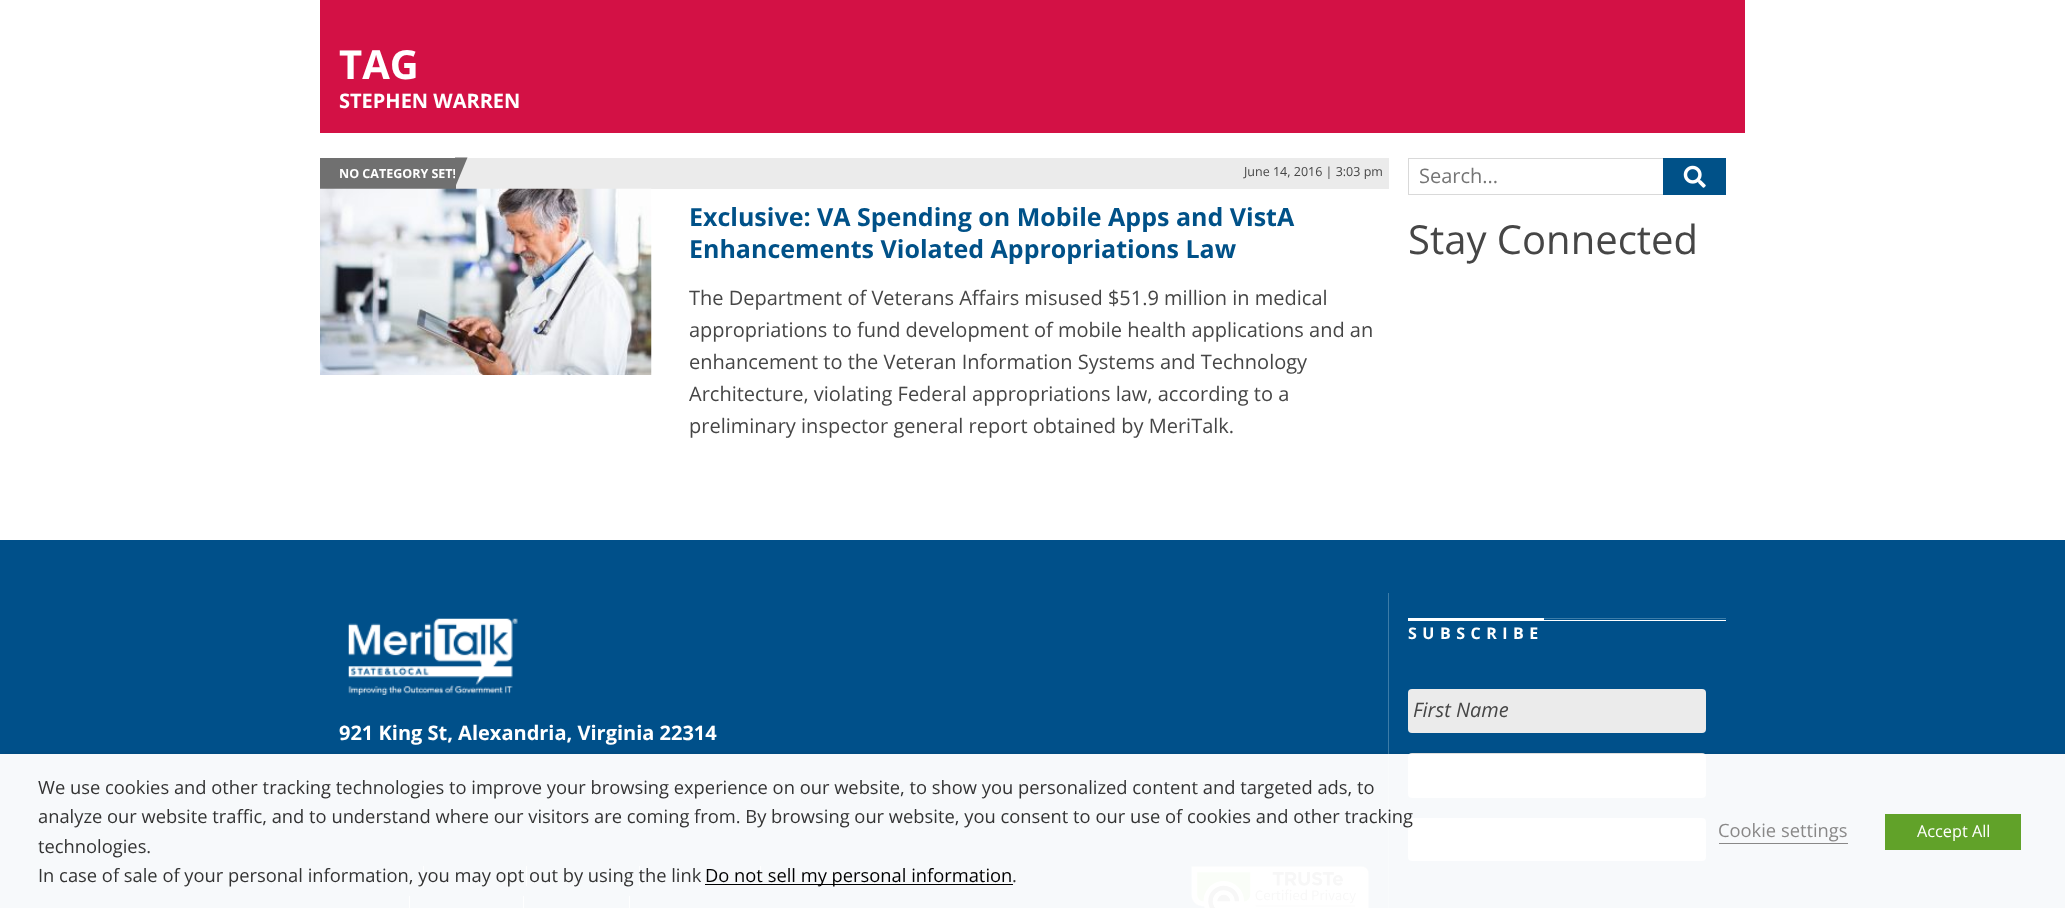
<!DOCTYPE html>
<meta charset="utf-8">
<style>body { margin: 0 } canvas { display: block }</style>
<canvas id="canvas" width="2065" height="908"></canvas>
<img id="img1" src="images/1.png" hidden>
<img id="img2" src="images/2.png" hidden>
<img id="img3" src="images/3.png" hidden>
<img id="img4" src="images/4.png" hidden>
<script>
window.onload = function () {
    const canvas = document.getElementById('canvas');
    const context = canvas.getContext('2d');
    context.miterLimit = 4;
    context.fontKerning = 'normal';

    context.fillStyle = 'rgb(255, 255, 255)';
    context.fillRect(0, 0, 2065, 908);
    context.fillStyle = 'rgb(211, 17, 69)';
    context.fillRect(320, 0, 1425, 133);
    context.fillStyle = 'rgb(235, 235, 235)';
    context.fillRect(456, 158, 933, 31);
    context.fillStyle = 'rgb(112, 112, 112)';
    context.fillRect(320, 158, 136, 31);
    context.drawImage(document.getElementById('img1'), 320, 188, 332, 187);
    context.fillStyle = 'rgb(217, 217, 217)';
    context.fillRect(1408, 158, 255, 1);
    context.fillRect(1408, 194, 255, 1);
    context.fillRect(1408, 158, 1, 37);
    context.fillStyle = 'rgb(0, 81, 136)';
    context.fillRect(1663, 158, 63, 37);
    context.drawImage(document.getElementById('img2'), 1683, 165, 23, 23);
    context.fillStyle = 'rgb(0, 80, 138)';
    context.fillRect(0, 540, 2065, 368);
    context.fillStyle = 'rgb(255, 255, 255)';
    context.fillRect(1408, 618, 318, 3);
    context.fillStyle = 'rgb(60, 124, 168)';
    context.fillRect(1544, 618, 182, 1);
    context.fillStyle = 'rgb(0, 80, 138)';
    context.fillRect(1544, 619, 182, 1);
    context.fillStyle = 'rgb(235, 235, 235)';
    context.beginPath();
    context.roundRect(1408, 689, 298, 44, 4);
    context.fill();
    context.beginPath();
    context.roundRect(1408, 753, 298, 45, 4);
    context.fill();
    context.beginPath();
    context.roundRect(1408, 818, 298, 43, 4);
    context.fill();
    context.fillStyle = 'rgb(60, 124, 168)';
    context.fillRect(1388, 593, 1, 315);
    context.drawImage(document.getElementById('img3'), 348, 618, 170, 77);
    context.fillStyle = 'rgb(255, 255, 255)';
    context.fillRect(423, 866, 1, 20);
    context.fillRect(526, 866, 1, 20);
    context.fillRect(639, 866, 1, 20);
    context.fillRect(760, 866, 1, 20);
    context.fillRect(409, 896, 1, 12);
    context.fillRect(523, 896, 1, 12);
    context.fillRect(629, 896, 1, 12);
    context.drawImage(document.getElementById('img4'), 1191, 866, 178, 42);
    context.save();
    context.beginPath();
    context.rect(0, 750, 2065, 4);
    context.clip();
    context.fillStyle = 'rgba(0, 0, 0, 0.5)';
    context.filter = 'blur(6px)';
    context.beginPath();
    context.rect(0, 760, 2065, 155);
    context.fill();
    context.filter = 'none';
    context.restore();
    context.fillStyle = 'rgba(255, 255, 255, 0.97)';
    context.fillRect(0, 754, 2065, 154);
    context.fillStyle = 'rgb(0, 0, 0)';
    context.fillRect(705, 884, 308, 1);
    context.fillStyle = 'rgb(137, 136, 136)';
    context.fillRect(1719, 843, 129, 1);
    context.fillStyle = 'rgb(97, 162, 41)';
    context.fillRect(1885, 814, 136, 36);
    context.font = 'bold 40px Open Sans';
    context.fillStyle = 'rgb(255, 255, 255)';
    context.fillText('TAG', 339, 79);
    context.font = 'bold 20px Open Sans';
    context.fillText('STEPHEN WARREN', 339, 108);
    context.font = 'bold 12.5px Open Sans';
    context.fillText('NO CATEGORY SET!', 339, 178);
    context.fillStyle = 'rgb(112, 112, 112)';
    context.beginPath();
    context.moveTo(455, 187.5);
    context.lineTo(455, 157.5);
    context.lineTo(467.5, 157.5);
    context.closePath();
    context.fill();
    context.font = '12.5px Open Sans';
    context.fillStyle = 'rgb(70, 70, 70)';
    context.fillText('June 14, 2016 | 3:03 pm', 1244, 176);
    context.font = 'bold 25px Open Sans';
    context.fillStyle = 'rgb(0, 81, 136)';
    context.fillText('Exclusive: VA Spending on Mobile Apps and VistA', 689, 226);
    context.fillText('Enhancements Violated Appropriations Law', 689, 258);
    context.font = '20px Open Sans';
    context.fillStyle = 'rgb(70, 70, 70)';
    context.fillText('The Department of Veterans Affairs misused $51.9 million in medical', 689, 305);
    context.fillText('appropriations to fund development of mobile health applications and an', 689, 337);
    context.fillText('enhancement to the Veteran Information Systems and Technology', 689, 369);
    context.fillText('Architecture, violating Federal appropriations law, according to a', 689, 401);
    context.fillText('preliminary inspector general report obtained by MeriTalk.', 689, 433);
    context.fillStyle = 'rgb(117, 117, 117)';
    context.fillText('Search...', 1419, 183);
    context.font = '40px Open Sans';
    context.fillStyle = 'rgb(70, 70, 70)';
    context.fillText('Stay Connected', 1408, 254);
    context.letterSpacing = '5.5px';
    context.font = 'bold 16px Open Sans';
    context.fillStyle = 'rgb(255, 255, 255)';
    context.fillText('SUBSCRIBE', 1408, 639);
    context.letterSpacing = '0px';
    context.font = 'italic 20px Open Sans';
    context.fillStyle = 'rgb(70, 70, 70)';
    context.fillText('First Name', 1413, 717);
    context.font = 'bold 20px Open Sans';
    context.fillStyle = 'rgb(255, 255, 255)';
    context.fillText('921 King St, Alexandria, Virginia 22314', 339, 740);
    context.font = '18.33px Open Sans';
    context.fillStyle = 'rgb(51, 51, 51)';
    context.fillText('We use cookies and other tracking technologies to improve your browsing experience on our website, to show you personalized content and targeted ads, to', 38, 794);
    context.fillText('analyze our website traffic, and to understand where our visitors are coming from. By browsing our website, you consent to our use of cookies and other tracking', 38, 823);
    context.fillText('technologies.', 38, 853);
    context.fillText('In case of sale of your personal information, you may opt out by using the link', 38, 882);
    context.fillStyle = 'rgb(0, 0, 0)';
    context.fillText('Do not sell my personal information', 705, 882);
    context.fillStyle = 'rgb(51, 51, 51)';
    context.fillText('.', 1012, 882);
    context.fillStyle = 'rgb(137, 136, 136)';
    context.fillText('Cookie settings', 1718, 837);
    context.font = '16.25px Open Sans';
    context.fillStyle = 'rgb(255, 255, 255)';
    context.fillText('Accept All', 1917, 837);
};
</script>
